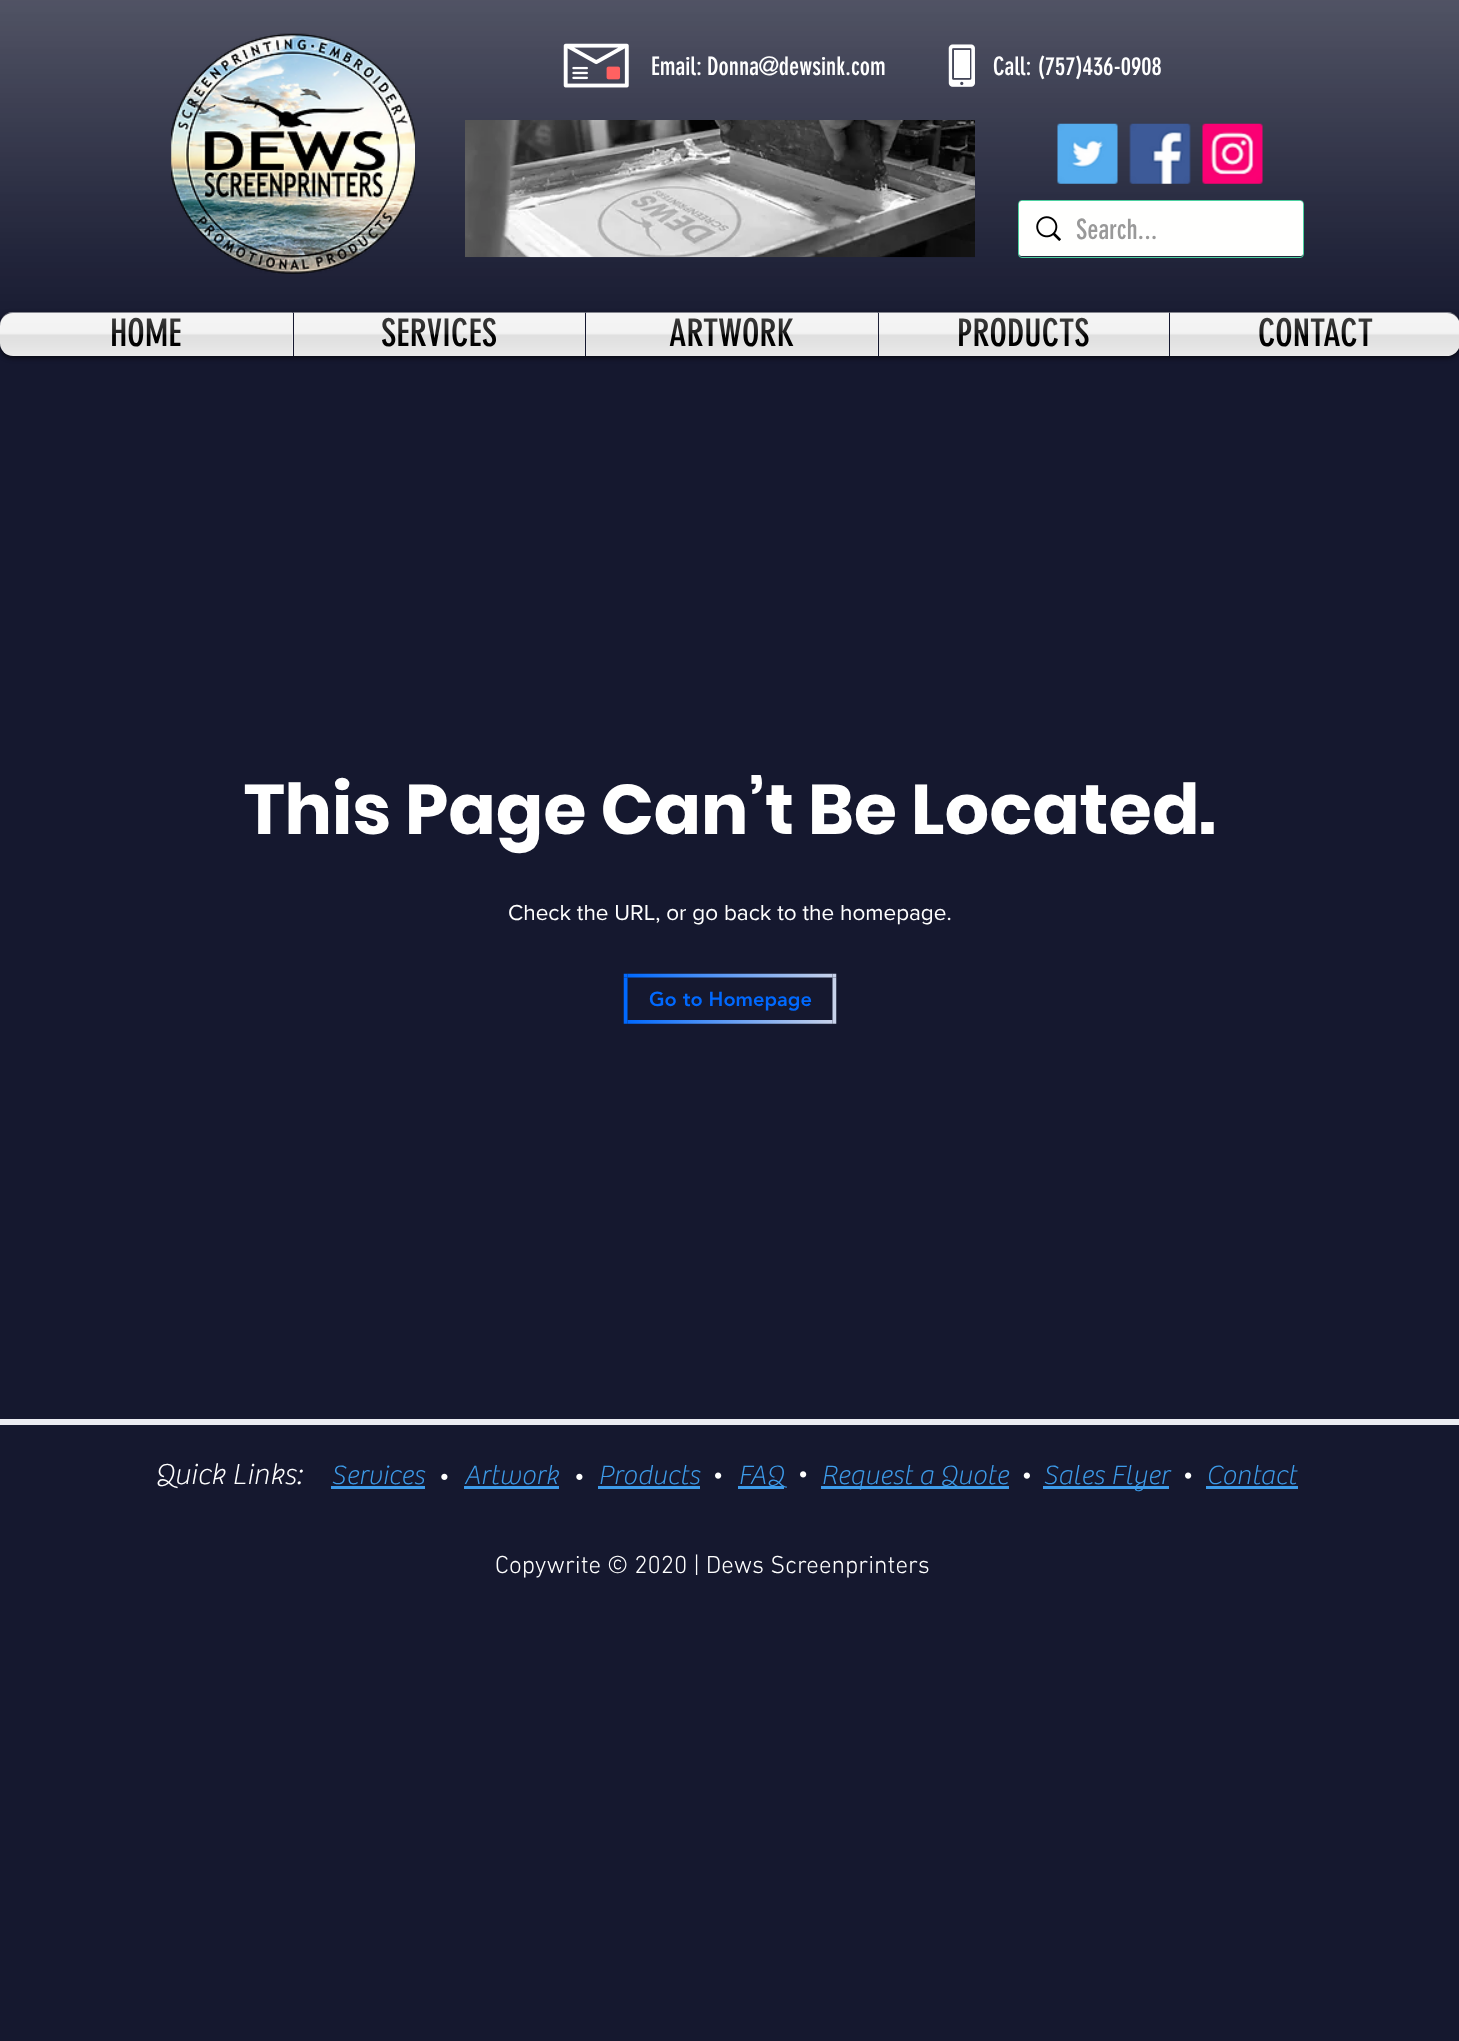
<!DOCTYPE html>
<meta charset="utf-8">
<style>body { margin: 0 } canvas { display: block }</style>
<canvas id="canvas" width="1459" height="2041"></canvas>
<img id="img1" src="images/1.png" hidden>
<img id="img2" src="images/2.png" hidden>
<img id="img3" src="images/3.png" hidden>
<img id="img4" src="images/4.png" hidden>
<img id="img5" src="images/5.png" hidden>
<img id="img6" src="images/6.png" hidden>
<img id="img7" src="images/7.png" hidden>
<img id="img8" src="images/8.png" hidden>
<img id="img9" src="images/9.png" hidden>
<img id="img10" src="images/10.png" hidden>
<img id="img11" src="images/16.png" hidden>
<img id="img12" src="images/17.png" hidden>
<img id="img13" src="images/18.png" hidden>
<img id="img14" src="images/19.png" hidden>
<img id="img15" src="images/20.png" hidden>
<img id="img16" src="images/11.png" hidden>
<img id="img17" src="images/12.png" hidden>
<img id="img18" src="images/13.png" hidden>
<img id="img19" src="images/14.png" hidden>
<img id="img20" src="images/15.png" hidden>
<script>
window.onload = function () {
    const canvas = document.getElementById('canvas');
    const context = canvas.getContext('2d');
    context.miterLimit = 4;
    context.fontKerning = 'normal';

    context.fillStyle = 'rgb(21, 24, 47)';
    context.fillRect(0, 0, 1459, 2041);
    context.drawImage(document.getElementById('img1'), 0, 0, 1459, 317);
    context.drawImage(document.getElementById('img2'), 171, 33, 244, 241);
    context.drawImage(document.getElementById('img3'), 563, 43, 66, 45);
    context.drawImage(document.getElementById('img4'), 948, 44, 27, 43);
    context.drawImage(document.getElementById('img5'), 465, 120, 510, 138);
    context.drawImage(document.getElementById('img6'), 1057, 123, 61, 61);
    context.drawImage(document.getElementById('img7'), 1129, 123, 62, 61);
    context.drawImage(document.getElementById('img8'), 1202, 123, 61, 61);
    context.beginPath();
    context.roundRect(1018.5, 200.5, 285, 57, 3.5);
    context.strokeStyle = 'rgb(75, 209, 160)';
    context.stroke();
    context.fillStyle = 'rgb(255, 255, 254)';
    context.beginPath();
    context.roundRect(1019, 201, 284, 55, 2.5);
    context.fill();
    context.drawImage(document.getElementById('img9'), 1036, 216, 25, 25);
    context.fillStyle = 'rgba(0, 0, 0, 0.6)';
    context.filter = 'blur(2.5px)';
    context.beginPath();
    context.roundRect(0, 314, 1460, 44, 13);
    context.fill();
    context.filter = 'none';
    context.drawImage(document.getElementById('img10'), 0, 312, 1459, 44);
    context.fillStyle = 'rgb(241, 241, 241)';
    context.beginPath();
    context.roundRect(0, 313, 293, 43, [13, 0, 0, 13]);
    context.fill();
    context.fillRect(294, 313, 291, 43);
    context.fillStyle = 'rgb(21, 24, 47)';
    context.fillRect(293, 313, 1, 43);
    context.fillStyle = 'rgb(241, 241, 241)';
    context.fillRect(586, 313, 292, 43);
    context.fillRect(879, 313, 290, 43);
    context.fillStyle = 'rgb(21, 24, 47)';
    context.fillRect(878, 313, 1, 43);
    context.fillStyle = 'rgb(241, 241, 241)';
    context.beginPath();
    context.moveTo(1169, 313);
    context.lineTo(1447, 313);
    context.bezierCurveTo(1454, 313, 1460, 319, 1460, 326);
    context.lineTo(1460, 343);
    context.bezierCurveTo(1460, 350, 1454, 356, 1447, 356);
    context.lineTo(1169, 356);
    context.closePath();
    context.fill();
    context.fillStyle = 'rgb(21, 24, 47)';
    context.fillRect(1169, 313, 1, 43);
    context.drawImage(document.getElementById('img11'), 623, 973, 214, 51);
    context.fillStyle = 'rgb(235, 236, 242)';
    context.fillRect(0, 1419, 1459, 6);
    context.fillStyle = 'rgb(61, 155, 233)';
    context.fillRect(331, 1486, 94, 3);
    context.drawImage(document.getElementById('img12'), 441, 1473, 7, 7);
    context.fillRect(464, 1486, 95, 3);
    context.drawImage(document.getElementById('img12'), 576, 1473, 7, 7);
    context.fillRect(598, 1486, 102, 3);
    context.drawImage(document.getElementById('img13'), 715, 1472, 7, 7);
    context.fillRect(738, 1486, 46, 3);
    context.drawImage(document.getElementById('img14'), 800, 1471, 7, 7);
    context.fillRect(821, 1486, 188, 3);
    context.drawImage(document.getElementById('img15'), 1023, 1472, 7, 7);
    context.fillRect(1043, 1486, 126, 3);
    context.drawImage(document.getElementById('img13'), 1185, 1472, 7, 7);
    context.fillRect(1206, 1486, 92, 3);
    context.font = '25px "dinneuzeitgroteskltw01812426"';
    context.fillStyle = 'rgb(255, 255, 255)';
    context.fillText('Email:', 651, 75);
    context.fillText('Donna@dewsink.com', 707, 75);
    context.fillText('Call: (757)436-0908', 993, 75);
    context.font = '27.5px "dinneuzeitgroteskltw01812426"';
    context.fillStyle = 'rgb(153, 153, 153)';
    context.fillText('Search...', 1076, 239);
    context.font = '37.5px "dinneuzeitgroteskltw01812426"';
    context.fillStyle = 'rgb(0, 0, 0)';
    context.fillText('HOME', 110, 346);
    context.drawImage(document.getElementById('img16'), 0, 312, 293, 44);
    context.fillText('SERVICES', 381, 346);
    context.drawImage(document.getElementById('img17'), 294, 312, 292, 44);
    context.fillStyle = 'rgb(21, 24, 47)';
    context.fillRect(585, 313, 1, 43);
    context.fillStyle = 'rgb(0, 0, 0)';
    context.fillText('ARTWORK', 669, 346);
    context.drawImage(document.getElementById('img18'), 586, 312, 292, 44);
    context.fillText('PRODUCTS', 957, 346);
    context.drawImage(document.getElementById('img19'), 878, 312, 291, 44);
    context.fillText('CONTACT', 1258, 346);
    context.drawImage(document.getElementById('img20'), 1170, 312, 289, 44);
    context.font = 'bold 70px Poppins';
    context.fillStyle = 'rgb(255, 255, 255)';
    context.fillText('This Page Can’t Be Located.', 244, 834);
    context.font = '22.5px "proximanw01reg"';
    context.fillText('Check the URL, or go back to the homepage.', 508, 920);
    context.font = '900 20px "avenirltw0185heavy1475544"';
    context.fillStyle = 'rgb(0, 105, 255)';
    context.fillText('Go to Homepage', 649, 1006);
    context.letterSpacing = '0.25px';
    context.font = '100 30px "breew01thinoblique"';
    context.fillStyle = 'rgb(255, 255, 255)';
    context.fillText('Quick Links:', 155, 1484);
    context.font = '100 27.5px "breew01thinoblique"';
    context.fillStyle = 'rgb(61, 155, 233)';
    context.fillText('Services', 331, 1484);
    context.fillText('Artwork', 464, 1484);
    context.fillText('Products', 598, 1484);
    context.fillText('FAQ', 738, 1484);
    context.fillText('Request a Quote', 821, 1484);
    context.fillText('Sales Flyer', 1043, 1484);
    context.fillText('Contact', 1206, 1484);
    context.letterSpacing = '0px';
    context.font = '300 25px "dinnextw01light"';
    context.fillStyle = 'rgb(255, 255, 255)';
    context.fillText('Copywrite © 2020 | Dews Screenprinters', 495, 1573);
};
</script>
